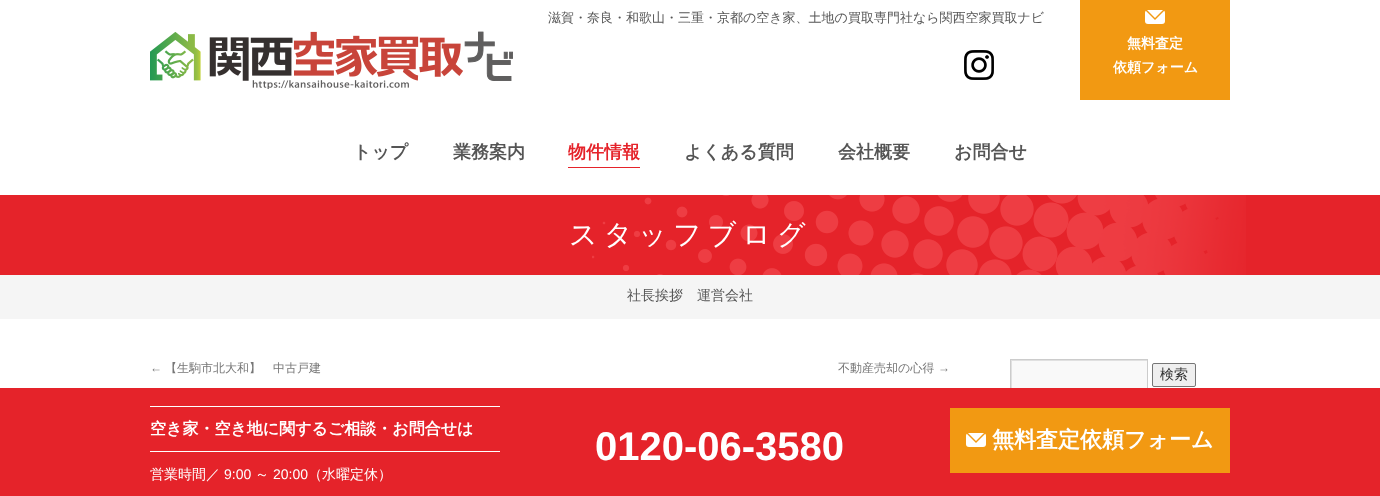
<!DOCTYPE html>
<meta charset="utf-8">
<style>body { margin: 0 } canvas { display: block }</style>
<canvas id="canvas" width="1380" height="496"></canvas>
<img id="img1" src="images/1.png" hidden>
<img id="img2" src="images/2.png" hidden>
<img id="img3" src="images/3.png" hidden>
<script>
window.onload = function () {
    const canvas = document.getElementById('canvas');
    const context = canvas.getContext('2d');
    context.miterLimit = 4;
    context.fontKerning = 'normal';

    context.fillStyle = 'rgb(255, 255, 255)';
    context.fillRect(0, 0, 1380, 496);
    context.drawImage(document.getElementById('img1'), 964, 50, 30, 30);
    context.drawImage(document.getElementById('img2'), 150, 31, 363, 58);
    context.fillStyle = 'rgb(242, 153, 18)';
    context.fillRect(1080, 0, 150, 100);
    context.fillStyle = 'rgb(255, 255, 255)';
    context.beginPath();
    context.roundRect(1145, 10, 20, 14, 3);
    context.fill();
    context.fillStyle = 'rgb(242, 153, 18)';
    context.beginPath();
    context.moveTo(1145, 10);
    context.lineTo(1165, 10);
    context.lineTo(1155, 20);
    context.closePath();
    context.fill();
    context.fillStyle = 'rgb(255, 255, 255)';
    context.beginPath();
    context.moveTo(1147, 10);
    context.lineTo(1163, 10);
    context.lineTo(1155, 18);
    context.closePath();
    context.fill();
    context.fillStyle = 'rgb(229, 35, 42)';
    context.fillRect(568, 167, 72, 1);
    context.fillRect(0, 195, 1380, 80);
    context.drawImage(document.getElementById('img3'), 592, 195, 654, 80);
    context.fillStyle = 'rgb(245, 245, 245)';
    context.fillRect(0, 275, 1380, 44);
    context.fillStyle = 'rgb(249, 249, 249)';
    context.fillRect(1012, 361, 135, 27);
    context.save();
    context.beginPath();
    context.rect(1011, 360, 136, 28);
    context.clip();
    context.fillStyle = 'rgb(224, 224, 224)';
    context.beginPath();
    context.moveTo(912, 261);
    context.lineTo(1246, 261);
    context.lineTo(1246, 487);
    context.lineTo(912, 487);
    context.closePath();
    context.moveTo(1012, 361);
    context.lineTo(1148, 361);
    context.lineTo(1148, 389);
    context.lineTo(1012, 389);
    context.closePath();
    context.fill('evenodd');
    context.restore();
    context.strokeStyle = 'rgb(204, 204, 204)';
    context.strokeRect(1010.5, 359.5, 137, 29);
    context.fillStyle = 'rgb(239, 239, 239)';
    context.beginPath();
    context.roundRect(1152.5, 363.5, 43, 23, 1.5);
    context.fill();
    context.strokeStyle = 'rgb(118, 118, 118)';
    context.stroke();
    context.fillStyle = 'rgb(229, 35, 42)';
    context.fillRect(0, 388, 1380, 108);
    context.fillStyle = 'rgb(255, 255, 255)';
    context.fillRect(150, 406, 350, 1);
    context.fillRect(150, 451, 350, 1);
    context.fillStyle = 'rgb(242, 153, 18)';
    context.fillRect(950, 408, 280, 65);
    context.fillStyle = 'rgb(255, 255, 255)';
    context.beginPath();
    context.roundRect(966, 433, 20, 14, 3);
    context.fill();
    context.fillStyle = 'rgb(242, 153, 18)';
    context.beginPath();
    context.moveTo(966, 433);
    context.lineTo(986, 433);
    context.lineTo(976, 443);
    context.closePath();
    context.fill();
    context.fillStyle = 'rgb(255, 255, 255)';
    context.beginPath();
    context.moveTo(968, 433);
    context.lineTo(984, 433);
    context.lineTo(976, 441);
    context.closePath();
    context.fill();
    context.font = '500 13px WenQuanYi Zen Hei';
    context.fillStyle = 'rgb(85, 85, 85)';
    context.fillText('滋賀・奈良・和歌山・三重・京都の空き家、土地の買取専門社なら関西空家買取ナビ', 548, 22);
    context.font = 'bold 14px WenQuanYi Zen Hei';
    context.fillStyle = 'rgb(255, 255, 255)';
    context.fillText('無料査定', 1127, 48);
    context.fillText('依頼フォーム', 1113, 72);
    context.font = 'bold 18px WenQuanYi Zen Hei';
    context.fillStyle = 'rgb(85, 85, 85)';
    context.fillText('トップ', 353, 158);
    context.fillText('業務案内', 453, 158);
    context.fillStyle = 'rgb(229, 35, 42)';
    context.fillText('物件情報', 568, 158);
    context.fillStyle = 'rgb(85, 85, 85)';
    context.fillText('よくある質問', 684, 158);
    context.fillText('会社概要', 838, 158);
    context.fillText('お問合せ', 954, 158);
    context.letterSpacing = '6px';
    context.font = '500 28px WenQuanYi Zen Hei';
    context.fillStyle = 'rgb(255, 255, 255)';
    context.fillText('スタッフブログ', 569, 244);
    context.letterSpacing = '0px';
    context.font = '500 14px WenQuanYi Zen Hei';
    context.fillStyle = 'rgb(85, 85, 85)';
    context.fillText('社長挨拶　運営会社', 627, 300);
    context.font = '12px Liberation Sans';
    context.fillStyle = 'rgb(119, 119, 119)';
    context.fillText('←', 150, 372);
    context.font = '500 12px WenQuanYi Zen Hei';
    context.fillText('【生駒市北大和】　中古戸建', 165, 372);
    context.fillText('不動産売却の心得', 838, 372);
    context.font = '12px Liberation Sans';
    context.fillText('→', 938, 372);
    context.font = '500 14px WenQuanYi Zen Hei';
    context.fillStyle = 'rgb(51, 51, 51)';
    context.fillText('検索', 1160, 379);
    context.font = 'bold 16px WenQuanYi Zen Hei';
    context.fillStyle = 'rgb(255, 255, 255)';
    context.fillText('空き家・空き地に関するご相談・お問合せは', 150, 434);
    context.font = '500 14px WenQuanYi Zen Hei';
    context.fillText('営業時間／', 150, 479);
    context.font = '14px Liberation Sans';
    context.fillText('9:00', 224, 479);
    context.font = '500 14px WenQuanYi Zen Hei';
    context.fillText('～', 255, 479);
    context.font = '14px Liberation Sans';
    context.fillText('20:00', 273, 479);
    context.font = '500 14px WenQuanYi Zen Hei';
    context.fillText('（水曜定休）', 308, 479);
    context.font = 'bold 40px Liberation Sans';
    context.fillText('0120-06-3580', 595, 460);
    context.font = 'bold 22px WenQuanYi Zen Hei';
    context.fillText('無料査定依頼フォーム', 992, 447);
};
</script>
